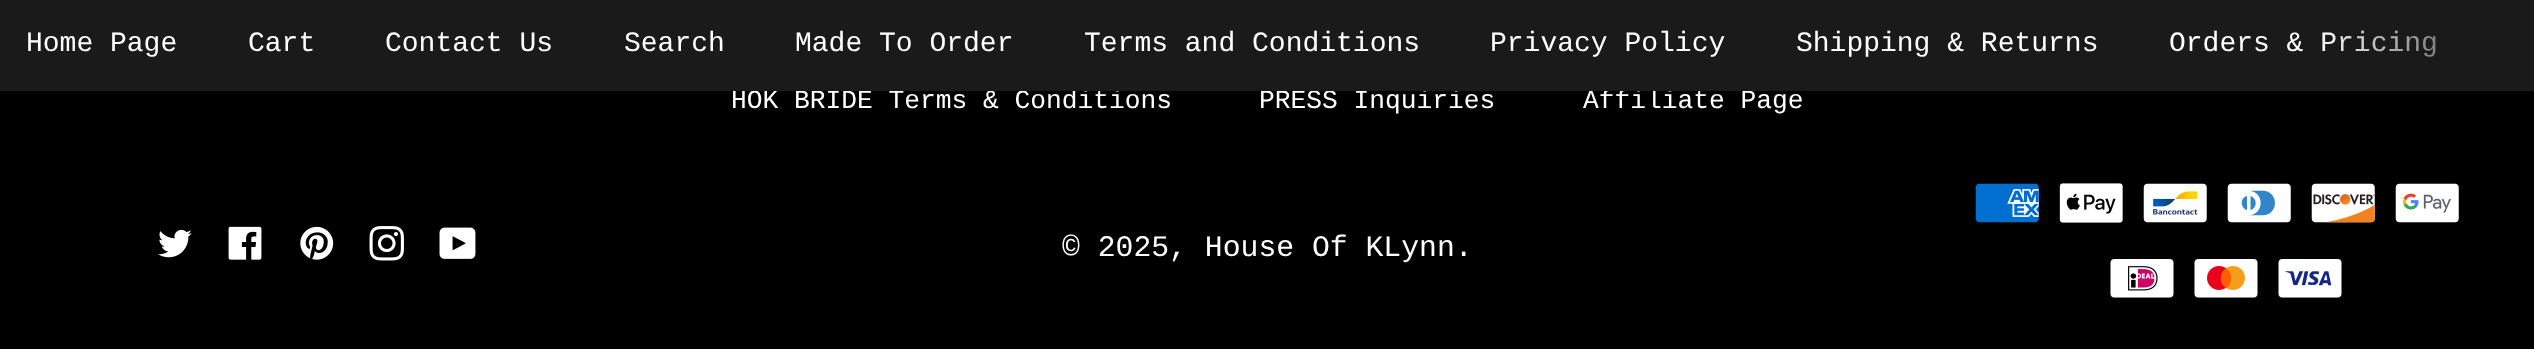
<!DOCTYPE html>
<meta charset="utf-8">
<style>body { margin: 0 } canvas { display: block }</style>
<canvas id="canvas" width="2534" height="349"></canvas>
<img id="img1" src="images/1.png" hidden>
<img id="img2" src="images/2.png" hidden>
<img id="img3" src="images/3.png" hidden>
<img id="img4" src="images/4.png" hidden>
<img id="img5" src="images/5.png" hidden>
<img id="img6" src="images/6.png" hidden>
<img id="img7" src="images/7.png" hidden>
<img id="img8" src="images/8.png" hidden>
<img id="img9" src="images/9.png" hidden>
<img id="img10" src="images/10.png" hidden>
<img id="img11" src="images/11.png" hidden>
<img id="img12" src="images/12.png" hidden>
<img id="img13" src="images/13.png" hidden>
<img id="img14" src="images/14.png" hidden>
<script>
window.onload = function () {
    const canvas = document.getElementById('canvas');
    const context = canvas.getContext('2d');
    context.miterLimit = 4;
    context.fontKerning = 'normal';
    let gradient;

    context.fillStyle = 'rgb(0, 0, 0)';
    context.fillRect(0, 0, 2534, 349);
    context.drawImage(document.getElementById('img1'), 158, 229, 34, 29);
    context.drawImage(document.getElementById('img2'), 228, 226, 34, 34);
    context.drawImage(document.getElementById('img3'), 300, 226, 34, 34);
    context.drawImage(document.getElementById('img4'), 369, 226, 35, 35);
    context.drawImage(document.getElementById('img5'), 439, 227, 37, 32);
    context.drawImage(document.getElementById('img6'), 1975, 183, 64, 40);
    context.drawImage(document.getElementById('img7'), 2059, 183, 64, 40);
    context.drawImage(document.getElementById('img8'), 2143, 183, 64, 40);
    context.drawImage(document.getElementById('img9'), 2227, 183, 64, 40);
    context.drawImage(document.getElementById('img10'), 2311, 183, 64, 40);
    context.drawImage(document.getElementById('img11'), 2395, 183, 64, 40);
    context.drawImage(document.getElementById('img12'), 2110, 259, 64, 39);
    context.drawImage(document.getElementById('img13'), 2194, 259, 64, 39);
    context.drawImage(document.getElementById('img14'), 2278, 259, 64, 39);
    context.font = '26.25px Liberation Mono';
    context.fillStyle = 'rgb(255, 255, 255)';
    context.fillText('HOK BRIDE Terms & Conditions', 731, 108);
    context.fillText('PRESS Inquiries', 1259, 108);
    context.fillText('Affiliate Page', 1583, 108);
    context.fillStyle = 'rgb(26, 26, 26)';
    context.fillRect(0, 0, 2533, 91);
    context.font = '28px Liberation Mono';
    context.fillStyle = 'rgb(255, 255, 255)';
    context.fillText('Orders & Pricing', 2169, 51);
    gradient = context.createLinearGradient(2315, 46, 2534, 45);
    gradient.addColorStop(0, 'rgba(26, 26, 26, 0)');
    gradient.addColorStop(1, 'rgb(26, 26, 26)');
    context.fillStyle = gradient;
    context.fillRect(2322, 0, 212, 91);
    context.fillStyle = 'rgb(255, 255, 255)';
    context.fillText('Shipping & Returns', 1796, 51);
    context.fillText('Privacy Policy', 1490, 51);
    context.fillText('Terms and Conditions', 1084, 51);
    context.fillText('Made To Order', 795, 51);
    context.fillText('Search', 624, 51);
    context.fillText('Contact Us', 385, 51);
    context.fillText('Cart', 248, 51);
    context.fillText('Home Page', 26, 51);
    context.font = '29.75px Liberation Mono';
    context.fillText('© 2025, House Of KLynn.', 1062, 256);
};
</script>
